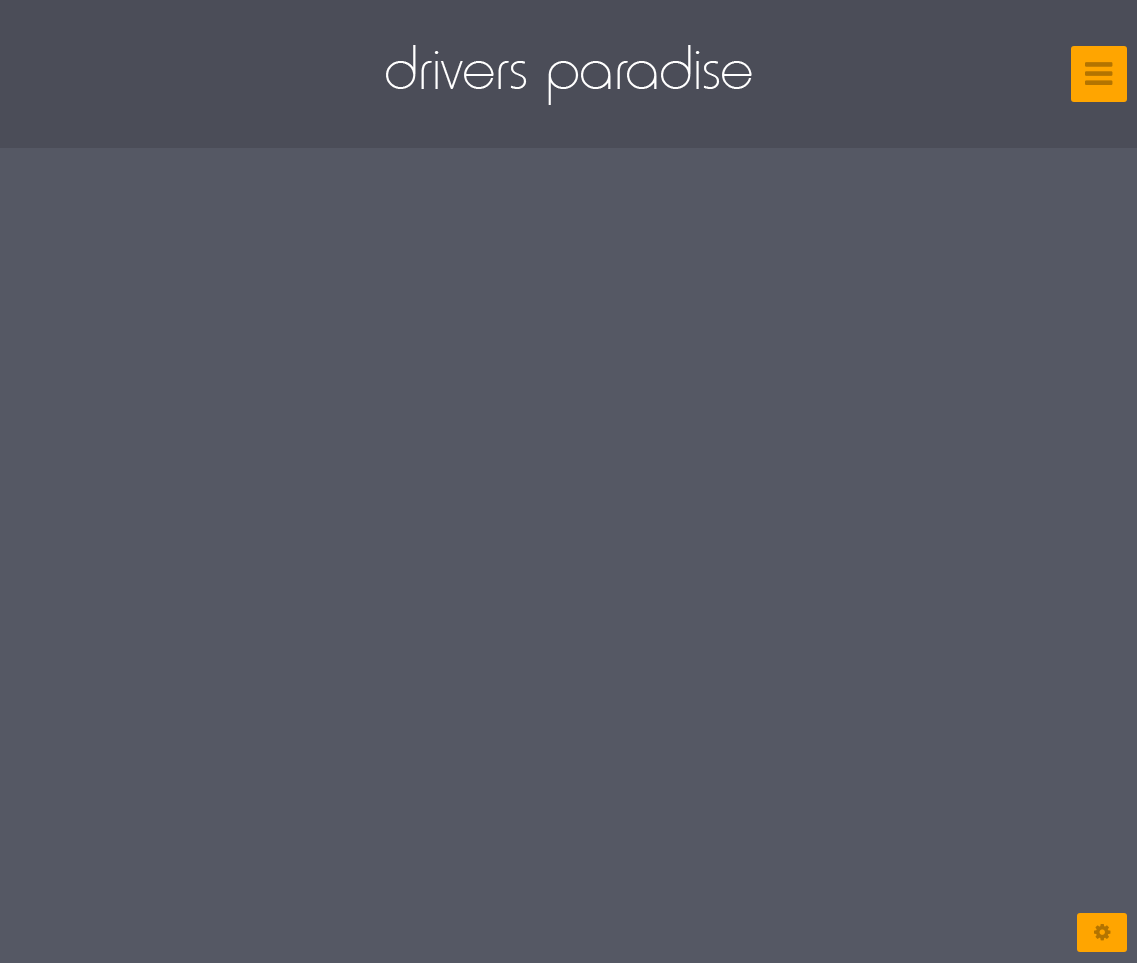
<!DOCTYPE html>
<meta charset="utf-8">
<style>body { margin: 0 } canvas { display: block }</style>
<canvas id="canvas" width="1137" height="963"></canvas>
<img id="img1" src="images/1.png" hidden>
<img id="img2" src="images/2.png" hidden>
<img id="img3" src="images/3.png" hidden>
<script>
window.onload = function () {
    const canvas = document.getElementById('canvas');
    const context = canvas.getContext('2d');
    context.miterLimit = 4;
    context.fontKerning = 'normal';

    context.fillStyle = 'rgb(85, 88, 100)';
    context.fillRect(0, 0, 1137, 963);
    context.fillStyle = 'rgb(75, 77, 88)';
    context.fillRect(0, 0, 1137, 148);
    context.drawImage(document.getElementById('img1'), 386, 45, 366, 60);
    context.fillStyle = 'rgb(255, 165, 0)';
    context.beginPath();
    context.roundRect(1071, 46, 56, 56, 3);
    context.fill();
    context.drawImage(document.getElementById('img2'), 1085, 62, 28, 23);
    context.beginPath();
    context.roundRect(1077, 913, 50, 39, 3);
    context.fill();
    context.drawImage(document.getElementById('img3'), 1094, 924, 17, 17);
};
</script>
